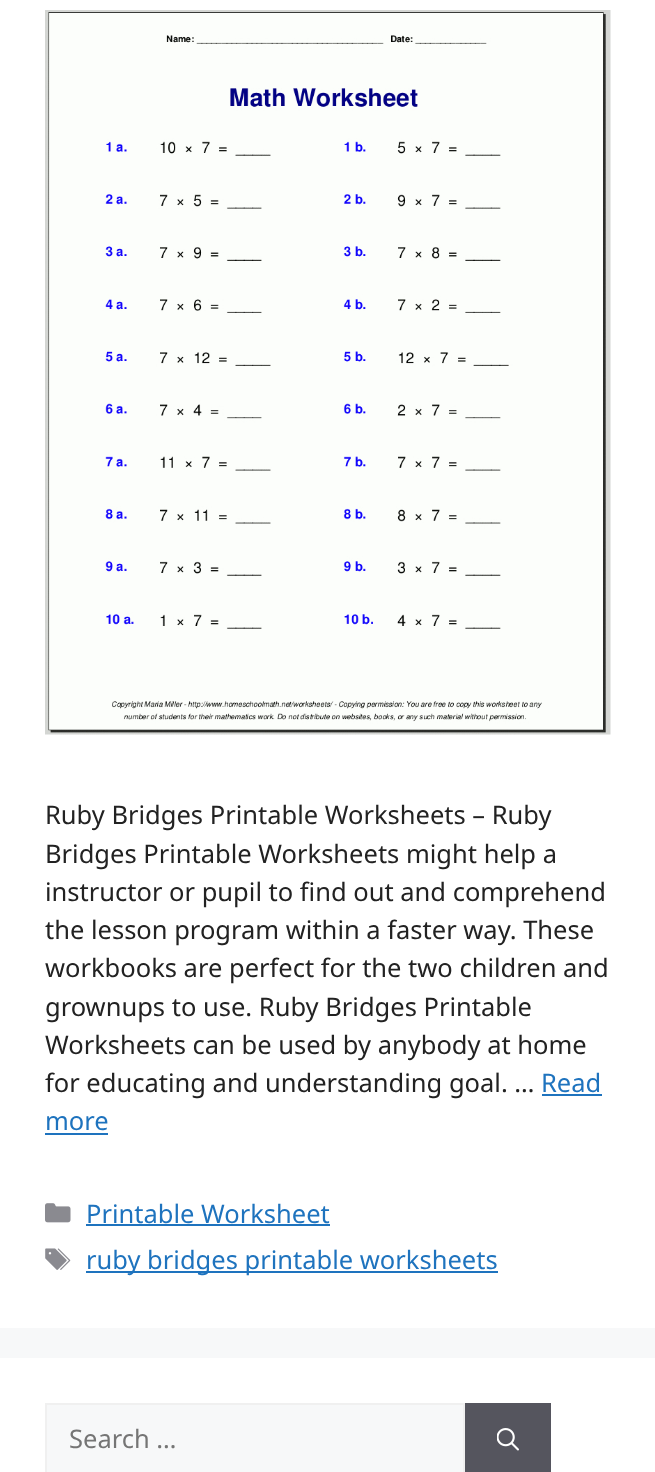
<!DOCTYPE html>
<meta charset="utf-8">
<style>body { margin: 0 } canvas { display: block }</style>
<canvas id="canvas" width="655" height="1472"></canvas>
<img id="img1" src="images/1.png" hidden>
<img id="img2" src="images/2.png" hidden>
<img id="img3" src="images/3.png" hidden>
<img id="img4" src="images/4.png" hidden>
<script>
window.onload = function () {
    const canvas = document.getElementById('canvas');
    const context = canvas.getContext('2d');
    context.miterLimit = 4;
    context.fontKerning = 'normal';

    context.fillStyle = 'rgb(247, 248, 249)';
    context.fillRect(0, 0, 655, 1472);
    context.fillStyle = 'rgb(255, 255, 255)';
    context.fillRect(0, 0, 655, 1328);
    context.drawImage(document.getElementById('img1'), 45, 10, 566, 725);
    context.fillStyle = 'rgb(30, 115, 190)';
    context.fillRect(542, 1094, 60, 2);
    context.fillRect(45, 1133, 63, 2);
    context.drawImage(document.getElementById('img2'), 45, 1203, 26, 20);
    context.fillRect(86, 1224, 244, 2);
    context.drawImage(document.getElementById('img3'), 45, 1248, 26, 22);
    context.fillRect(86, 1271, 412, 2);
    context.fillStyle = 'rgb(255, 255, 255)';
    context.fillRect(0, 1358, 655, 114);
    context.fillStyle = 'rgb(247, 248, 249)';
    context.beginPath();
    context.rect(46, 1404, 418, 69);
    context.fill();
    context.strokeStyle = 'rgb(240, 240, 240)';
    context.lineWidth = 2;
    context.stroke();
    context.fillStyle = 'rgb(85, 85, 94)';
    context.fillRect(465, 1403, 86, 69);
    context.drawImage(document.getElementById('img4'), 497, 1428, 22, 23);
    context.font = '25.5px Noto Sans';
    context.fillStyle = 'rgb(34, 34, 34)';
    context.fillText('Ruby Bridges Printable Worksheets – Ruby', 45, 824);
    context.fillText('Bridges Printable Worksheets might help a', 45, 863);
    context.fillText('instructor or pupil to find out and comprehend', 45, 901);
    context.fillText('the lesson program within a faster way. These', 45, 939);
    context.fillText('workbooks are perfect for the two children and', 45, 977);
    context.fillText('grownups to use. Ruby Bridges Printable', 45, 1016);
    context.fillText('Worksheets can be used by anybody at home', 45, 1054);
    context.fillText('for educating and understanding goal. …', 45, 1092);
    context.fillStyle = 'rgb(30, 115, 190)';
    context.fillText('Read', 541, 1092);
    context.fillText('more', 45, 1130);
    context.fillText('Printable Worksheet', 86, 1223);
    context.fillText('ruby bridges printable worksheets', 86, 1269);
    context.fillStyle = 'rgb(117, 117, 117)';
    context.fillText('Search …', 69, 1448);
};
</script>
